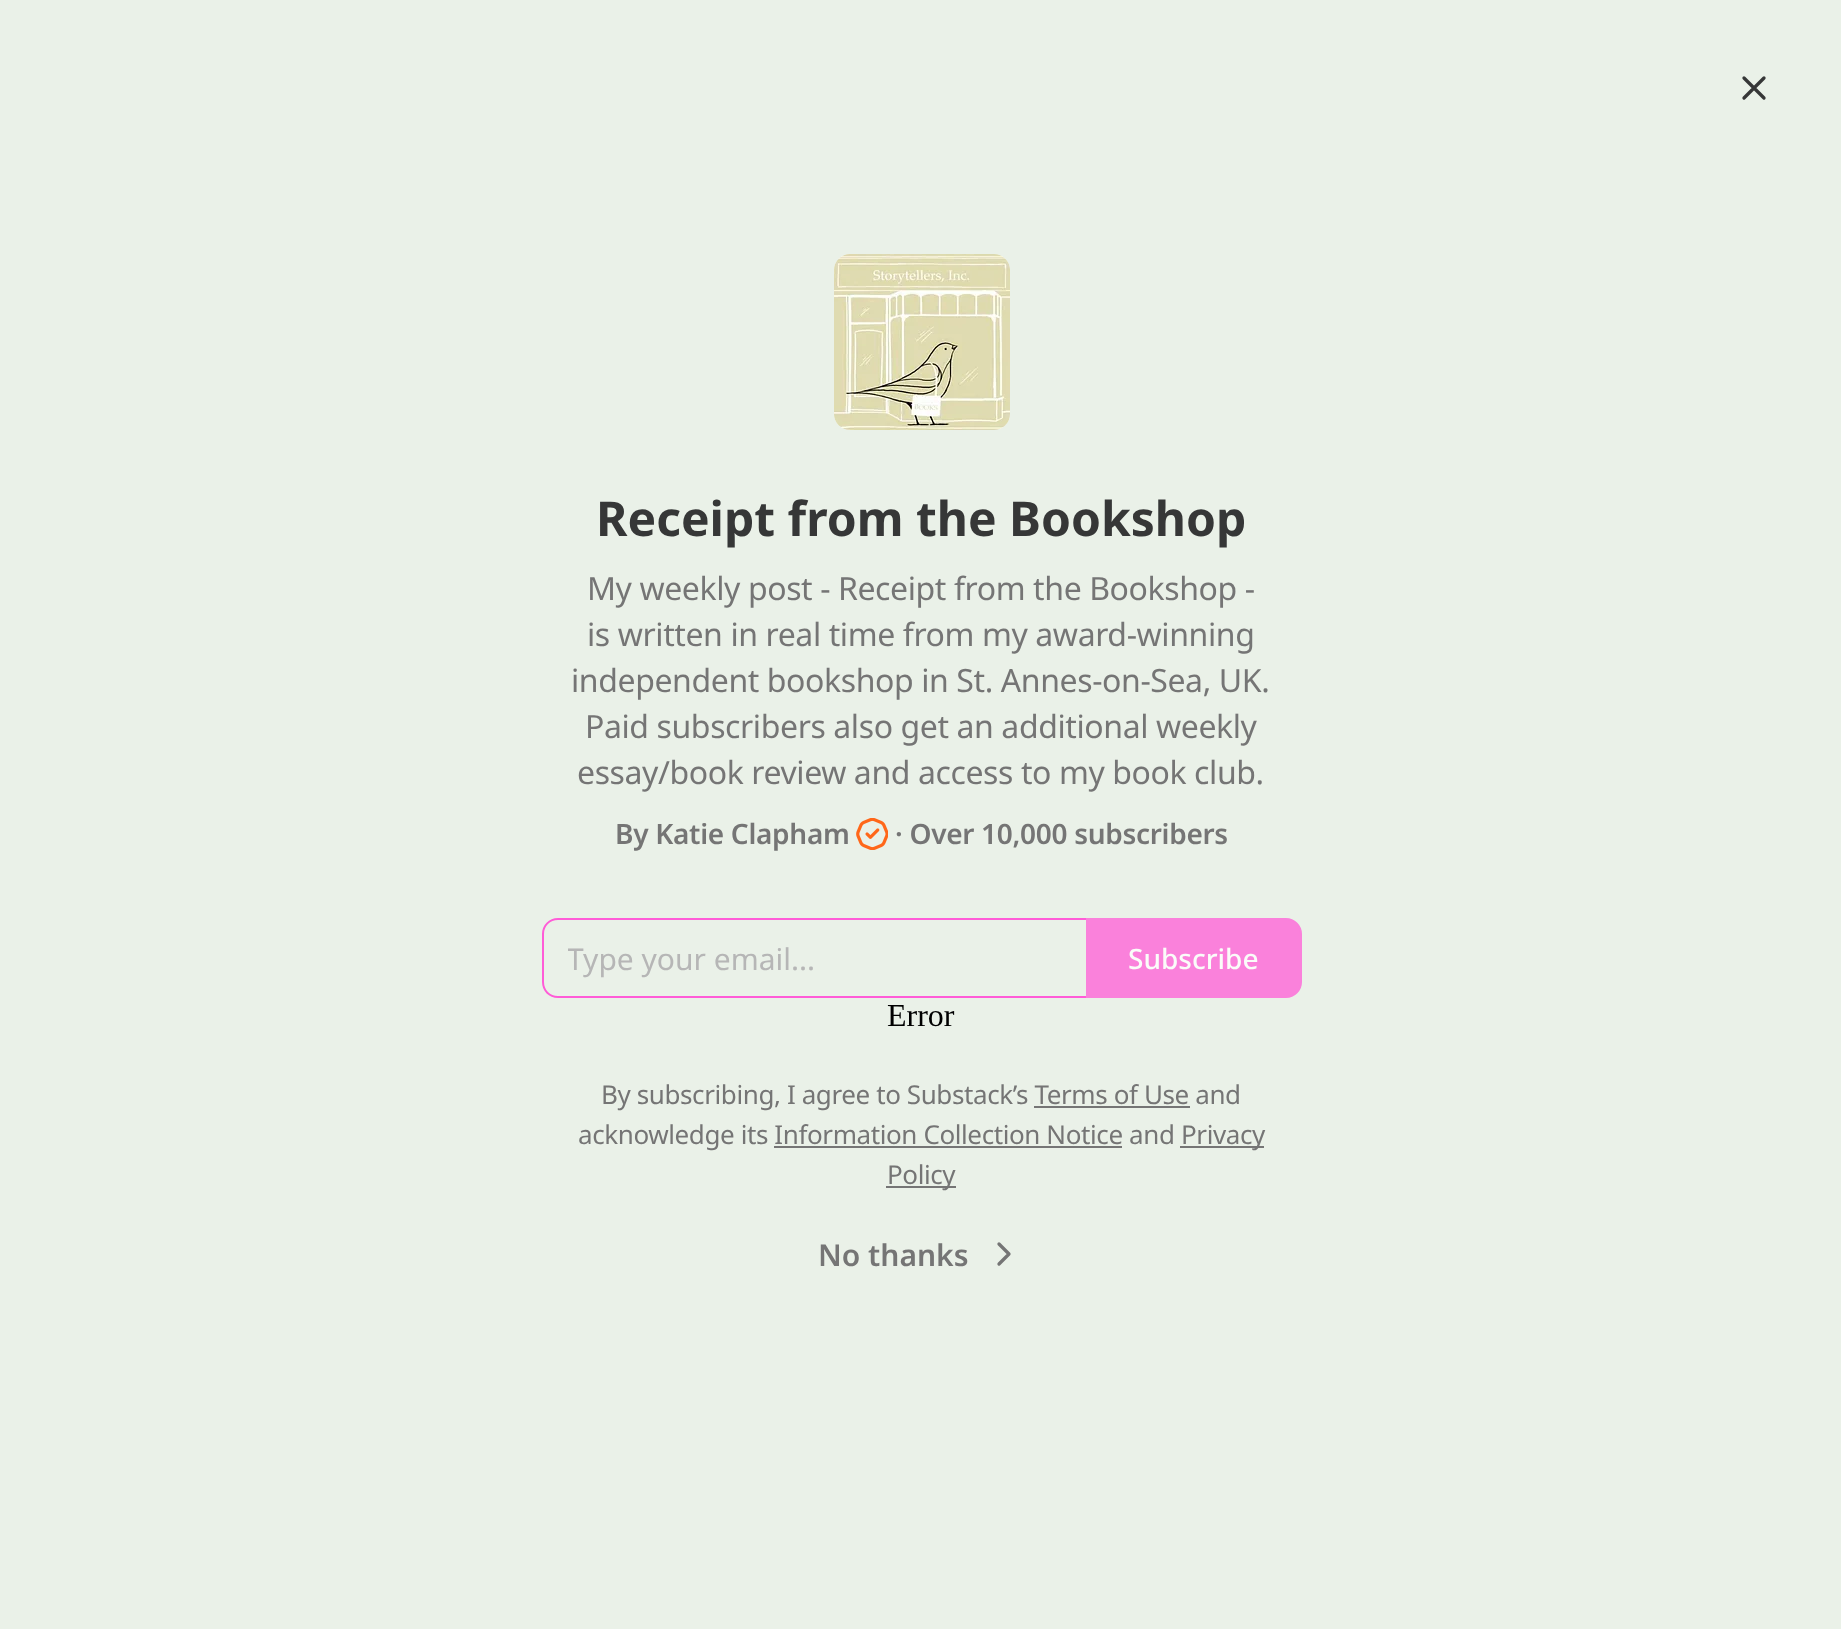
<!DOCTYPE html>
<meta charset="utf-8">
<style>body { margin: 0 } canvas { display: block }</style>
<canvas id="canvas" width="1841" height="1629"></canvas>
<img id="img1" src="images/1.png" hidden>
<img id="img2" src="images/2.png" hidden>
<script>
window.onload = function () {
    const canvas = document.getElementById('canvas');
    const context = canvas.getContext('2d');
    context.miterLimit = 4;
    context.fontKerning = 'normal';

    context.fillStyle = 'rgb(234, 241, 232)';
    context.fillRect(0, 0, 1841, 1629);
    context.beginPath();
    context.moveTo(1764, 78);
    context.lineTo(1744, 98);
    context.moveTo(1744, 78);
    context.lineTo(1764, 98);
    context.strokeStyle = 'rgb(54, 55, 55)';
    context.lineWidth = 3.3;
    context.lineCap = 'round';
    context.lineJoin = 'round';
    context.stroke();
    context.fillStyle = 'rgb(255, 255, 255)';
    context.beginPath();
    context.roundRect(834, 254, 176, 176, 16);
    context.fill();
    context.drawImage(document.getElementById('img1'), 834, 254, 176, 176);
    context.drawImage(document.getElementById('img2'), 856, 818, 32, 32);
    context.fillStyle = 'rgb(255, 92, 215)';
    context.beginPath();
    context.moveTo(558, 918);
    context.lineTo(1086, 918);
    context.lineTo(1086, 998);
    context.lineTo(558, 998);
    context.bezierCurveTo(549, 998, 542, 991, 542, 982);
    context.lineTo(542, 934);
    context.bezierCurveTo(542, 925, 549, 918, 558, 918);
    context.closePath();
    context.moveTo(558, 920);
    context.lineTo(1086, 920);
    context.lineTo(1086, 996);
    context.lineTo(558, 996);
    context.bezierCurveTo(550, 996, 544, 990, 544, 982);
    context.lineTo(544, 934);
    context.bezierCurveTo(544, 926, 550, 920, 558, 920);
    context.closePath();
    context.fill('evenodd');
    context.fillStyle = 'rgb(250, 129, 219)';
    context.beginPath();
    context.roundRect(1087, 919, 214, 78, [0, 15, 15, 0]);
    context.fill();
    context.strokeStyle = 'rgb(250, 129, 219)';
    context.lineWidth = 2;
    context.lineJoin = 'miter';
    context.stroke();
    context.fillStyle = 'rgb(117, 117, 117)';
    context.fillRect(1034, 1106, 156, 2);
    context.fillRect(1180, 1146, 84, 2);
    context.fillRect(774, 1146, 348, 2);
    context.fillRect(886, 1186, 70, 2);
    context.beginPath();
    context.moveTo(999, 1264);
    context.lineTo(1009, 1254);
    context.lineTo(999, 1244);
    context.strokeStyle = 'rgb(117, 117, 117)';
    context.lineWidth = 3.3;
    context.lineJoin = 'round';
    context.stroke();
    context.font = 'bold 48px Noto Sans';
    context.fillStyle = 'rgb(54, 55, 55)';
    context.fillText('Receipt from the Bookshop', 596, 536);
    context.letterSpacing = '-0.4px';
    context.font = '32px Noto Sans';
    context.fillStyle = 'rgb(117, 117, 117)';
    context.fillText('My weekly post - Receipt from the Bookshop -', 587, 600);
    context.fillText('is written in real time from my award-winning', 587, 646);
    context.fillText('independent bookshop in St. Annes-on-Sea, UK.', 571, 692);
    context.fillText('Paid subscribers also get an additional weekly', 585, 738);
    context.fillText('essay/book review and access to my book club.', 577, 784);
    context.letterSpacing = '-0.3px';
    context.font = '600 28px Noto Sans';
    context.fillText('By Katie Clapham', 615, 844);
    context.fillText('· Over 10,000 subscribers', 895, 844);
    context.save();
    context.beginPath();
    context.rect(568, 938, 494, 40);
    context.clip();
    context.letterSpacing = '0px';
    context.font = '30px Noto Sans';
    context.fillStyle = 'rgb(182, 182, 182)';
    context.fillText('Type your email...', 567, 970);
    context.restore();
    context.letterSpacing = '0px';
    context.font = '500 28px Noto Sans';
    context.fillStyle = 'rgb(250, 252, 249)';
    context.fillText('Subscribe', 1128, 969);
    context.font = '32px Liberation Serif';
    context.fillStyle = 'rgb(0, 0, 0)';
    context.fillText('Error', 887, 1026);
    context.letterSpacing = '-0.4px';
    context.font = '26px Noto Sans';
    context.fillStyle = 'rgb(117, 117, 117)';
    context.fillText('By subscribing, I agree to Substack’s Terms of Use and', 601, 1104);
    context.fillText('acknowledge its Information Collection Notice and', 578, 1144);
    context.fillText('Privacy', 1181, 1144);
    context.fillText('Policy', 887, 1184);
    context.letterSpacing = '0px';
    context.font = '600 30px Noto Sans';
    context.fillText('No thanks', 818, 1266);
};
</script>
